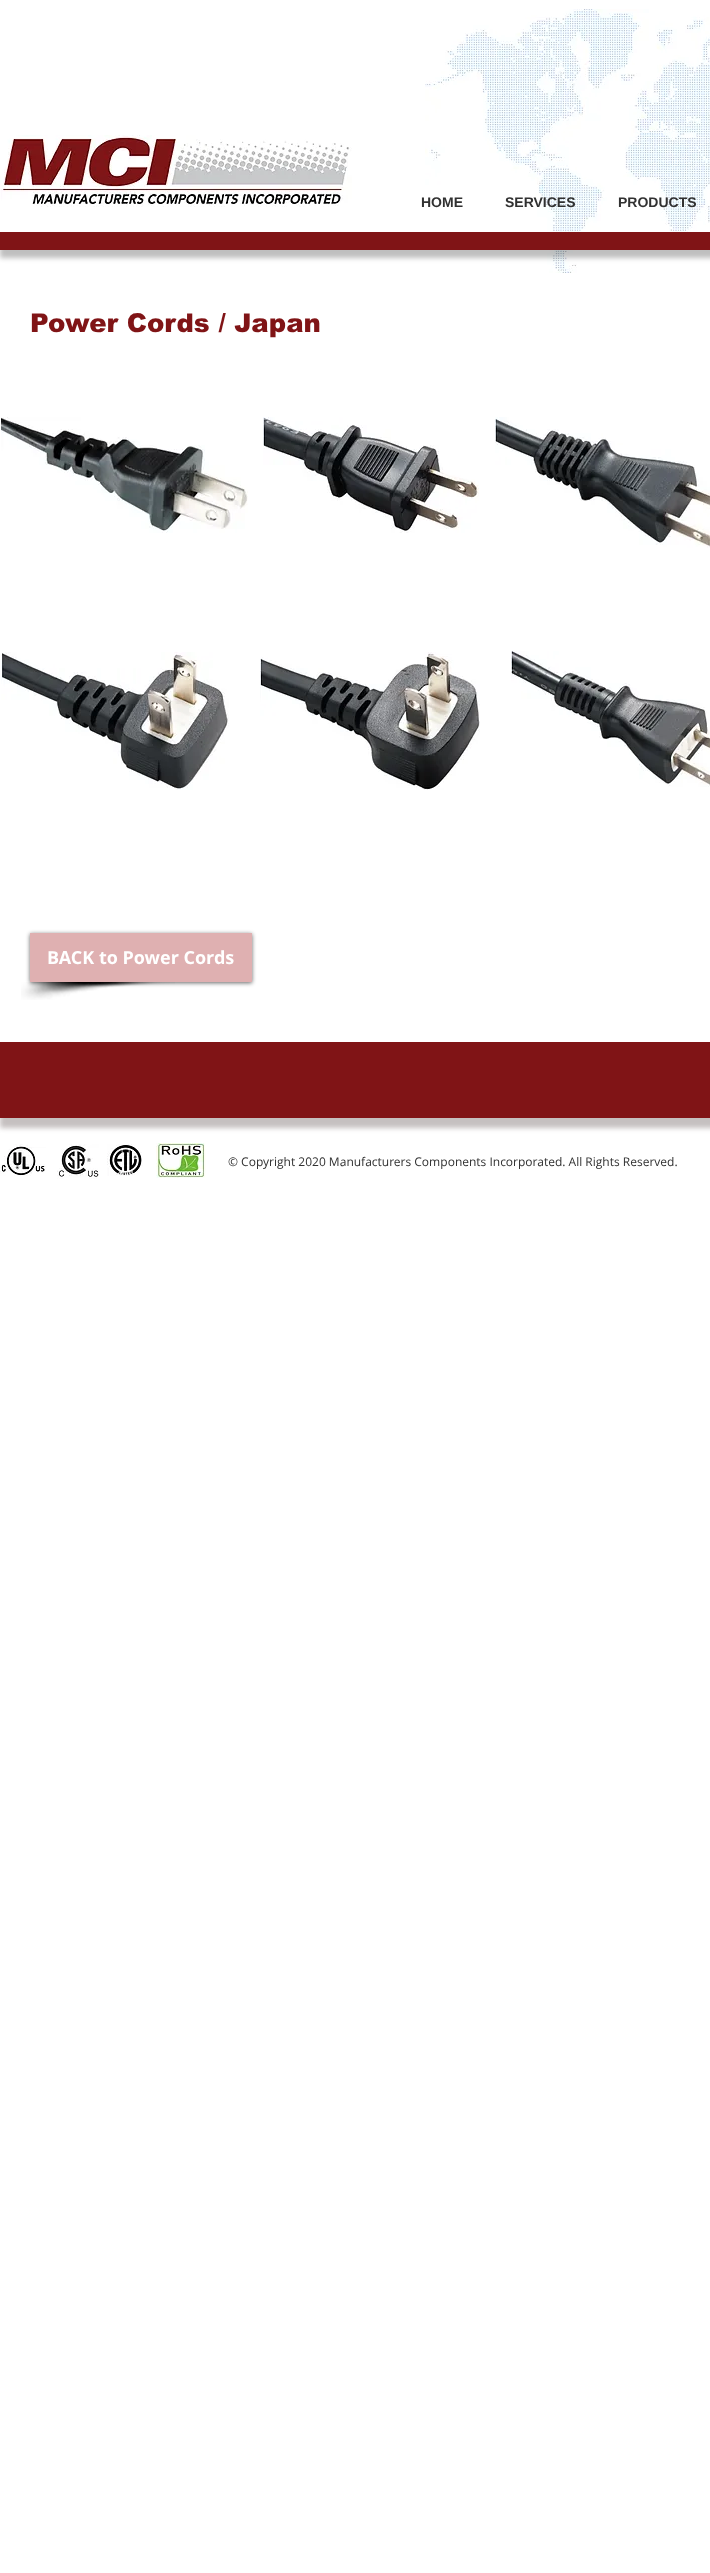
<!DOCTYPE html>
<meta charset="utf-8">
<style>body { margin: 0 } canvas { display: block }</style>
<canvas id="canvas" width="710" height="2573"></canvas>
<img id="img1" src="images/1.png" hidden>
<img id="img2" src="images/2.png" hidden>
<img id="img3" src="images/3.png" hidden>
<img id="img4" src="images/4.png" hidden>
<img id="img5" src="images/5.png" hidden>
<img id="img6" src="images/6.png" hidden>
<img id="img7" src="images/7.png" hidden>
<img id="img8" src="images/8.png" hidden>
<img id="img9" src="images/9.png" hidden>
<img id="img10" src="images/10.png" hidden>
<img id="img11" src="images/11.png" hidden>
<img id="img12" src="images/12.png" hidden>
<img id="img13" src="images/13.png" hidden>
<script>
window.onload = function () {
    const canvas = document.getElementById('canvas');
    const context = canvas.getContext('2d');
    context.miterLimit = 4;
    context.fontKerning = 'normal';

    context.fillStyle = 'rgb(255, 255, 255)';
    context.fillRect(0, 0, 710, 2573);
    context.drawImage(document.getElementById('img1'), 0, 135, 352, 72);
    context.drawImage(document.getElementById('img2'), 425, 9, 285, 264);
    context.fillStyle = 'rgba(0, 0, 0, 0.25)';
    context.filter = 'blur(2.5px)';
    context.beginPath();
    context.rect(0, 240, 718, 18);
    context.fill();
    context.filter = 'none';
    context.fillStyle = 'rgb(128, 20, 22)';
    context.fillRect(0, 232, 710, 18);
    context.drawImage(document.getElementById('img3'), 1, 417, 247, 116);
    context.drawImage(document.getElementById('img4'), 263, 417, 216, 116);
    context.drawImage(document.getElementById('img5'), 495, 417, 215, 131);
    context.drawImage(document.getElementById('img6'), 1, 652, 228, 138);
    context.drawImage(document.getElementById('img7'), 260, 652, 220, 138);
    context.drawImage(document.getElementById('img8'), 511, 651, 199, 136);
    context.drawImage(document.getElementById('img9'), 21, 982, 154, 18);
    context.fillStyle = 'rgba(0, 0, 0, 0.6)';
    context.filter = 'blur(2px)';
    context.beginPath();
    context.rect(30, 934, 222, 49);
    context.fill();
    context.filter = 'none';
    context.fillStyle = 'rgb(223, 176, 177)';
    context.fillRect(30, 933, 222, 49);
    context.fillStyle = 'rgba(177, 171, 171, 0.75)';
    context.filter = 'blur(2.5px)';
    context.beginPath();
    context.rect(0, 1052, 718, 76);
    context.fill();
    context.filter = 'none';
    context.fillStyle = 'rgb(128, 20, 22)';
    context.fillRect(0, 1042, 710, 76);
    context.drawImage(document.getElementById('img10'), 0, 1144, 46, 32);
    context.drawImage(document.getElementById('img11'), 57, 1144, 42, 35);
    context.drawImage(document.getElementById('img12'), 107, 1144, 36, 32);
    context.drawImage(document.getElementById('img13'), 156, 1143, 50, 35);
    context.font = 'bold 14px Liberation Sans';
    context.fillStyle = 'rgb(49, 49, 49)';
    context.fillText('HOME', 421, 207);
    context.fillText('SERVICES', 505, 207);
    context.fillText('PRODUCTS', 618, 207);
    context.font = '900 26px arial';
    context.fillStyle = 'rgb(128, 20, 22)';
    context.fillText('Power Cords / Japan', 30, 332);
    context.font = 'bold 18px Open Sans';
    context.fillStyle = 'rgb(255, 255, 255)';
    context.fillText('BACK to Power Cords', 47, 964);
    context.font = '12px Open Sans';
    context.fillStyle = 'rgb(49, 49, 49)';
    context.fillText('© Copyright 2020 Manufacturers Components Incorporated. All Rights Reserved.', 228, 1166);
};
</script>
